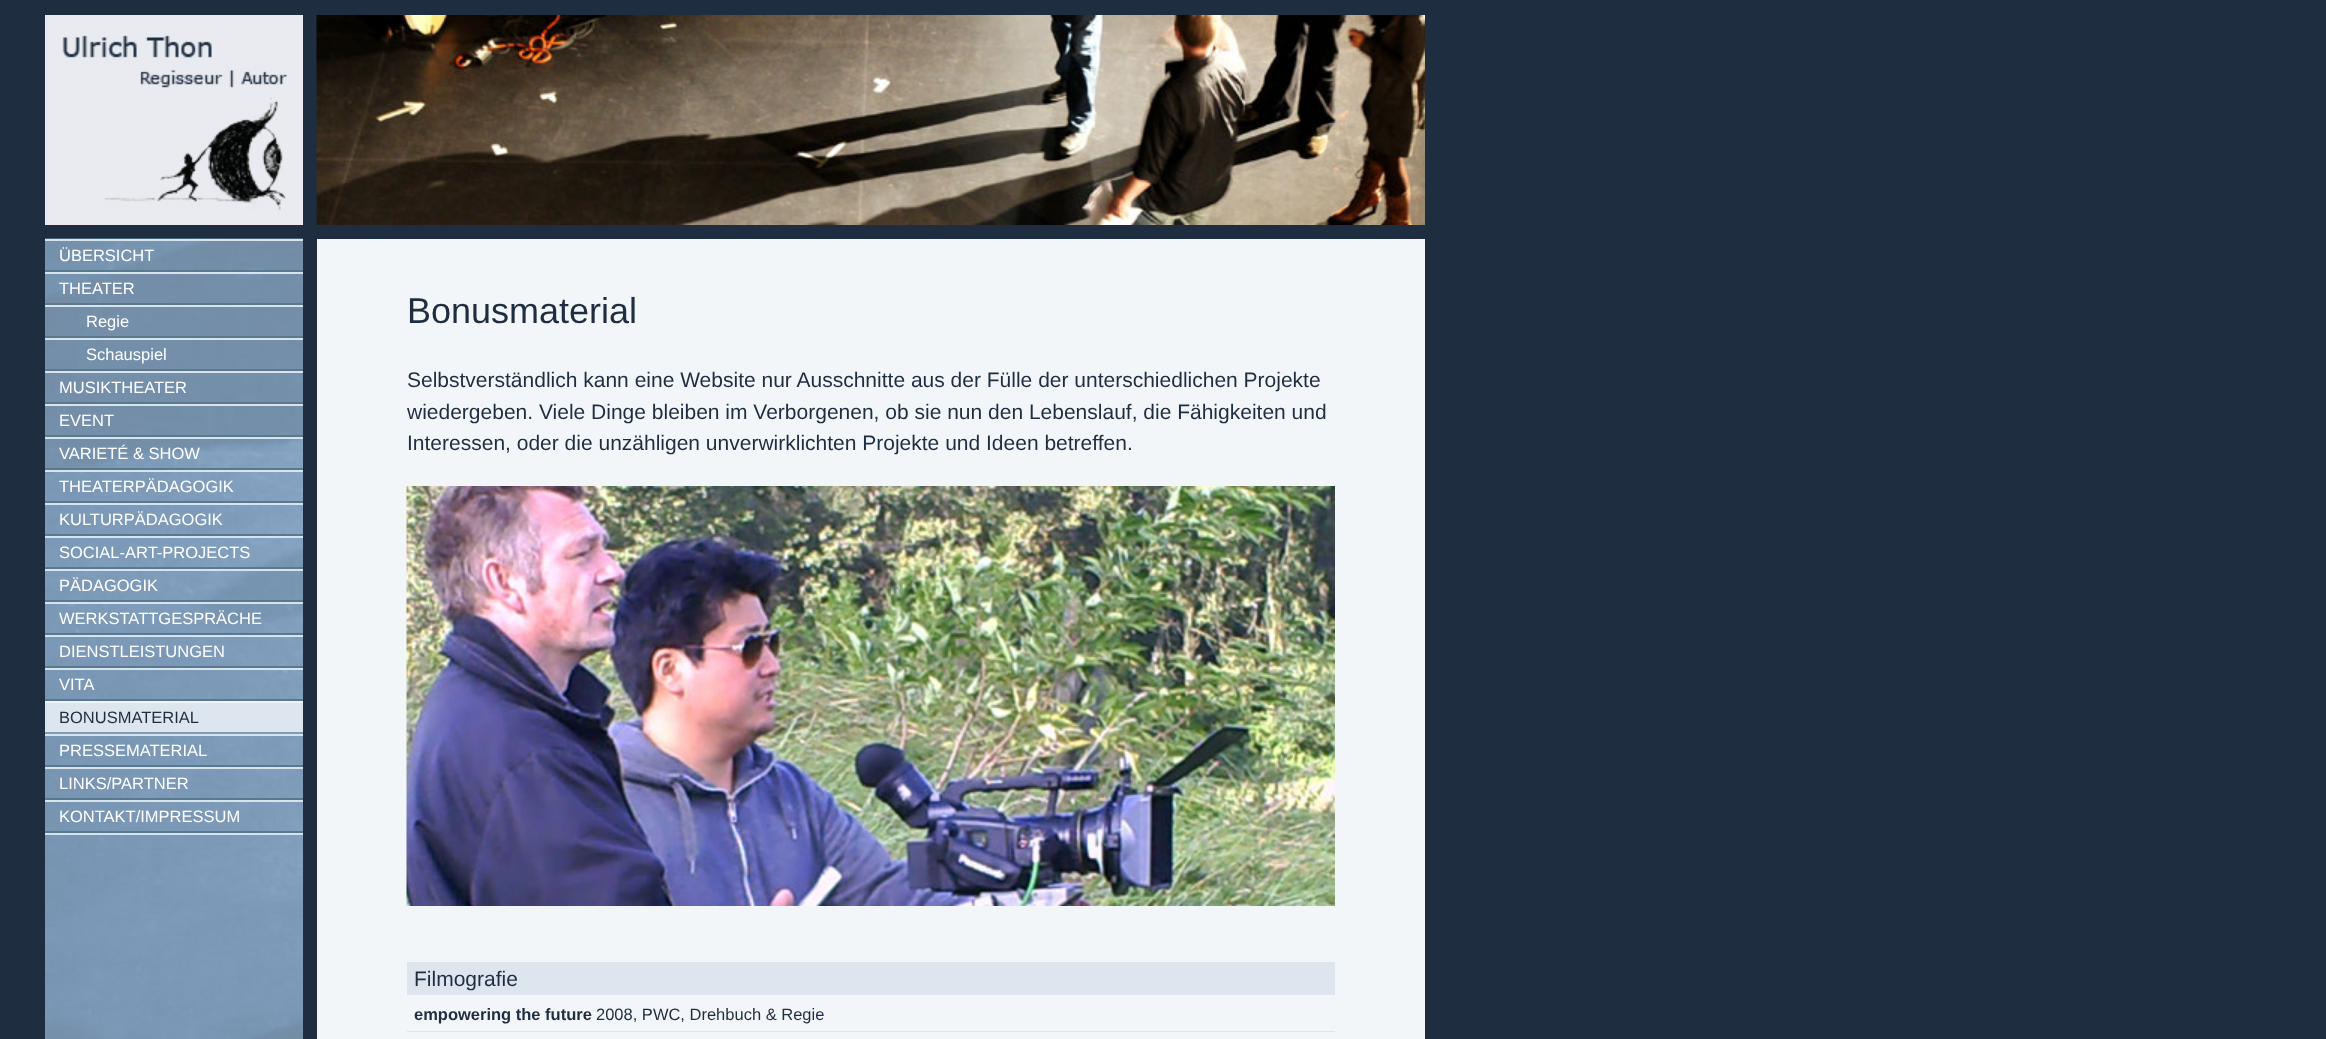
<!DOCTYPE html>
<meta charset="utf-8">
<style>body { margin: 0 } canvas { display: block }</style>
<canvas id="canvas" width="2326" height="1039"></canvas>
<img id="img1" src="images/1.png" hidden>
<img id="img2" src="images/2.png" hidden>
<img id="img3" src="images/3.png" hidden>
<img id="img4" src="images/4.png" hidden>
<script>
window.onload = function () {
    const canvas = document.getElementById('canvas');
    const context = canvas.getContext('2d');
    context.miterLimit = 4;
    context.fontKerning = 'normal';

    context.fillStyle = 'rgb(30, 45, 64)';
    context.fillRect(0, 0, 2326, 1039);
    context.fillStyle = 'rgb(233, 235, 240)';
    context.fillRect(45, 15, 258, 210);
    context.drawImage(document.getElementById('img1'), 62, 35, 225, 176);
    context.drawImage(document.getElementById('img2'), 316, 15, 1109, 210);
    context.drawImage(document.getElementById('img3'), 45, 238, 258, 801);
    context.fillStyle = 'rgb(216, 228, 235)';
    context.fillRect(45, 239, 258, 2);
    context.fillStyle = 'rgb(90, 121, 142)';
    context.fillRect(45, 270, 258, 2);
    context.fillStyle = 'rgb(216, 228, 235)';
    context.fillRect(45, 272, 258, 2);
    context.fillStyle = 'rgb(90, 121, 142)';
    context.fillRect(45, 303, 258, 2);
    context.fillStyle = 'rgb(216, 228, 235)';
    context.fillRect(45, 305, 258, 2);
    context.fillStyle = 'rgb(90, 121, 142)';
    context.fillRect(45, 336, 258, 2);
    context.fillStyle = 'rgb(216, 228, 235)';
    context.fillRect(45, 338, 258, 2);
    context.fillStyle = 'rgb(90, 121, 142)';
    context.fillRect(45, 369, 258, 2);
    context.fillStyle = 'rgb(216, 228, 235)';
    context.fillRect(45, 371, 258, 2);
    context.fillStyle = 'rgb(90, 121, 142)';
    context.fillRect(45, 402, 258, 2);
    context.fillStyle = 'rgb(216, 228, 235)';
    context.fillRect(45, 404, 258, 2);
    context.fillStyle = 'rgb(90, 121, 142)';
    context.fillRect(45, 435, 258, 2);
    context.fillStyle = 'rgb(216, 228, 235)';
    context.fillRect(45, 437, 258, 2);
    context.fillStyle = 'rgb(90, 121, 142)';
    context.fillRect(45, 468, 258, 2);
    context.fillStyle = 'rgb(216, 228, 235)';
    context.fillRect(45, 470, 258, 2);
    context.fillStyle = 'rgb(90, 121, 142)';
    context.fillRect(45, 501, 258, 2);
    context.fillStyle = 'rgb(216, 228, 235)';
    context.fillRect(45, 503, 258, 2);
    context.fillStyle = 'rgb(90, 121, 142)';
    context.fillRect(45, 534, 258, 2);
    context.fillStyle = 'rgb(216, 228, 235)';
    context.fillRect(45, 536, 258, 2);
    context.fillStyle = 'rgb(90, 121, 142)';
    context.fillRect(45, 567, 258, 2);
    context.fillStyle = 'rgb(216, 228, 235)';
    context.fillRect(45, 569, 258, 2);
    context.fillStyle = 'rgb(90, 121, 142)';
    context.fillRect(45, 600, 258, 2);
    context.fillStyle = 'rgb(216, 228, 235)';
    context.fillRect(45, 602, 258, 2);
    context.fillStyle = 'rgb(90, 121, 142)';
    context.fillRect(45, 633, 258, 2);
    context.fillStyle = 'rgb(216, 228, 235)';
    context.fillRect(45, 635, 258, 2);
    context.fillStyle = 'rgb(90, 121, 142)';
    context.fillRect(45, 666, 258, 2);
    context.fillStyle = 'rgb(216, 228, 235)';
    context.fillRect(45, 668, 258, 2);
    context.fillStyle = 'rgb(90, 121, 142)';
    context.fillRect(45, 699, 258, 2);
    context.fillStyle = 'rgb(221, 229, 238)';
    context.fillRect(45, 703, 258, 29);
    context.fillStyle = 'rgb(238, 244, 247)';
    context.fillRect(45, 701, 258, 2);
    context.fillStyle = 'rgb(128, 156, 181)';
    context.fillRect(45, 732, 258, 2);
    context.fillStyle = 'rgb(216, 228, 235)';
    context.fillRect(45, 734, 258, 2);
    context.fillStyle = 'rgb(90, 121, 142)';
    context.fillRect(45, 765, 258, 2);
    context.fillStyle = 'rgb(216, 228, 235)';
    context.fillRect(45, 767, 258, 2);
    context.fillStyle = 'rgb(90, 121, 142)';
    context.fillRect(45, 798, 258, 2);
    context.fillStyle = 'rgb(216, 228, 235)';
    context.fillRect(45, 800, 258, 2);
    context.fillStyle = 'rgb(90, 121, 142)';
    context.fillRect(45, 831, 258, 2);
    context.fillStyle = 'rgb(215, 227, 234)';
    context.fillRect(45, 833, 258, 2);
    context.fillStyle = 'rgb(243, 246, 248)';
    context.fillRect(317, 239, 1108, 800);
    context.drawImage(document.getElementById('img4'), 406, 486, 929, 420);
    context.fillStyle = 'rgb(221, 229, 238)';
    context.fillRect(407, 962, 928, 33);
    context.fillRect(407, 1031, 928, 1);
    context.font = '16.5px Liberation Sans';
    context.fillStyle = 'rgb(255, 255, 255)';
    context.fillText('ÜBERSICHT', 59, 261);
    context.fillText('THEATER', 59, 294);
    context.fillText('Regie', 86, 327);
    context.fillText('Schauspiel', 86, 360);
    context.fillText('MUSIKTHEATER', 59, 393);
    context.fillText('EVENT', 59, 426);
    context.fillText('VARIETÉ & SHOW', 59, 459);
    context.fillText('THEATERPÄDAGOGIK', 59, 492);
    context.fillText('KULTURPÄDAGOGIK', 59, 525);
    context.fillText('SOCIAL-ART-PROJECTS', 59, 558);
    context.fillText('PÄDAGOGIK', 59, 591);
    context.fillText('WERKSTATTGESPRÄCHE', 59, 624);
    context.fillText('DIENSTLEISTUNGEN', 59, 657);
    context.fillText('VITA', 59, 690);
    context.fillStyle = 'rgb(30, 45, 64)';
    context.fillText('BONUSMATERIAL', 59, 723);
    context.fillStyle = 'rgb(255, 255, 255)';
    context.fillText('PRESSEMATERIAL', 59, 756);
    context.fillText('LINKS/PARTNER', 59, 789);
    context.fillText('KONTAKT/IMPRESSUM', 59, 822);
    context.font = '36px Liberation Sans';
    context.fillStyle = 'rgb(30, 45, 64)';
    context.fillText('Bonusmaterial', 407, 323);
    context.font = '21px Liberation Sans';
    context.fillText('Selbstverständlich kann eine Website nur Ausschnitte aus der Fülle der unterschiedlichen Projekte', 407, 387);
    context.fillText('wiedergeben. Viele Dinge bleiben im Verborgenen, ob sie nun den Lebenslauf, die Fähigkeiten und', 407, 419);
    context.fillText('Interessen, oder die unzähligen unverwirklichten Projekte und Ideen betreffen.', 407, 450);
    context.fillText('Filmografie', 414, 986);
    context.font = 'bold 16.5px Liberation Sans';
    context.fillText('empowering the future', 414, 1020);
    context.font = '16.5px Liberation Sans';
    context.fillText('2008, PWC, Drehbuch & Regie', 596, 1020);
};
</script>
